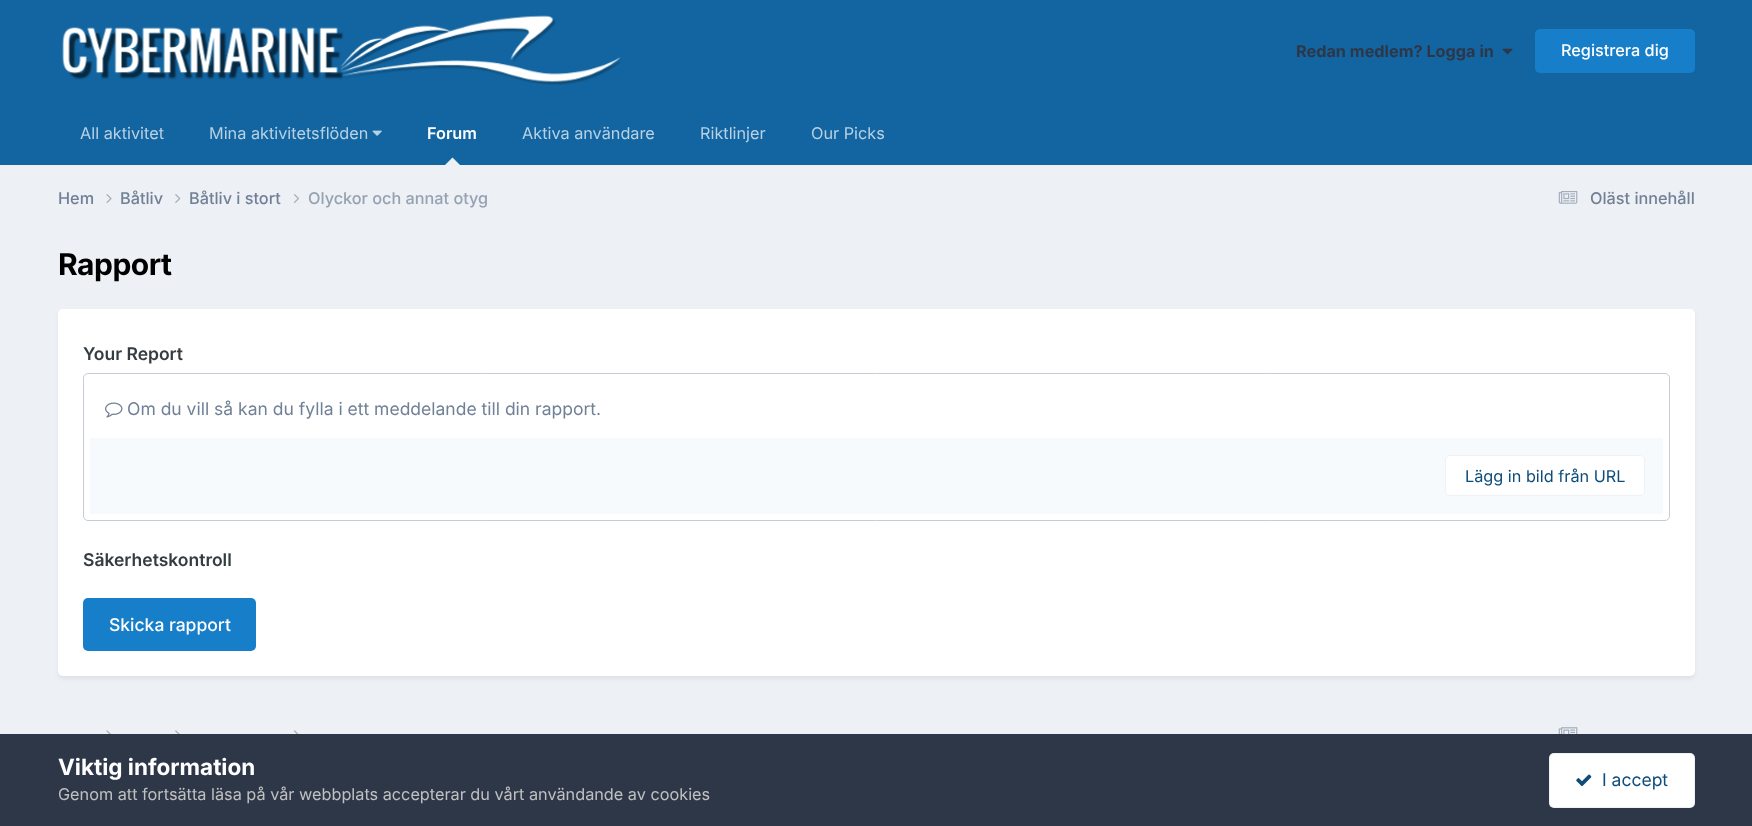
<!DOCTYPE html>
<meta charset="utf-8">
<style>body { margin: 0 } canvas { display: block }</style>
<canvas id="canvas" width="1752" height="826"></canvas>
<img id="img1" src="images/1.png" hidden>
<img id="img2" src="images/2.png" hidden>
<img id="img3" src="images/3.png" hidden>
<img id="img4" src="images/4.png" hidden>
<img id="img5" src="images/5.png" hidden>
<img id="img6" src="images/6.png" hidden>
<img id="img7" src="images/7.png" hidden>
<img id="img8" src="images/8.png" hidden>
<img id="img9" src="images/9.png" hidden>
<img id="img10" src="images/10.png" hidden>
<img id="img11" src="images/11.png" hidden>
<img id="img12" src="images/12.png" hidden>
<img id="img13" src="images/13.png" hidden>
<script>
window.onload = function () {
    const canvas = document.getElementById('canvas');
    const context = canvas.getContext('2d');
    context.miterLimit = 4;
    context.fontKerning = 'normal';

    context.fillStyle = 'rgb(237, 240, 244)';
    context.fillRect(0, 0, 1752, 826);
    context.fillStyle = 'rgb(18, 101, 161)';
    context.fillRect(0, 0, 1752, 165);
    context.drawImage(document.getElementById('img1'), 62, 15, 559, 70);
    context.drawImage(document.getElementById('img2'), 1502, 48, 11, 7);
    context.fillStyle = 'rgb(23, 126, 201)';
    context.beginPath();
    context.roundRect(1535, 29, 160, 44, 5);
    context.fill();
    context.drawImage(document.getElementById('img3'), 372, 130, 10, 6);
    context.fillStyle = 'rgb(237, 240, 244)';
    context.beginPath();
    context.moveTo(460, 165);
    context.lineTo(445, 165);
    context.lineTo(452.5, 157.5);
    context.closePath();
    context.fill();
    context.drawImage(document.getElementById('img4'), 106, 194, 6, 9);
    context.drawImage(document.getElementById('img5'), 175, 194, 6, 9);
    context.drawImage(document.getElementById('img6'), 294, 194, 5, 9);
    context.drawImage(document.getElementById('img7'), 1558, 191, 20, 13);
    context.fillStyle = 'rgba(45, 55, 72, 0.1)';
    context.filter = 'blur(2.5px)';
    context.beginPath();
    context.roundRect(59, 313, 1635, 365, 4);
    context.fill();
    context.filter = 'none';
    context.fillStyle = 'rgb(255, 255, 255)';
    context.beginPath();
    context.roundRect(58, 309, 1637, 367, 5);
    context.fill();
    context.beginPath();
    context.roundRect(83.5, 373.5, 1586, 147, 4.5);
    context.strokeStyle = 'rgb(198, 204, 213)';
    context.stroke();
    context.drawImage(document.getElementById('img8'), 105, 402, 18, 16);
    context.fillStyle = 'rgb(247, 250, 252)';
    context.fillRect(90, 438, 1573, 76);
    context.fillStyle = 'rgb(255, 255, 255)';
    context.beginPath();
    context.roundRect(1445, 455, 200, 41, 5);
    context.fill();
    context.beginPath();
    context.roundRect(1445.5, 455.5, 199, 40, 4.5);
    context.strokeStyle = 'rgba(14, 76, 121, 0.07)';
    context.stroke();
    context.fillStyle = 'rgb(23, 126, 201)';
    context.beginPath();
    context.roundRect(83, 598, 173, 53, 5);
    context.fill();
    context.drawImage(document.getElementById('img9'), 106, 730, 5, 4);
    context.drawImage(document.getElementById('img10'), 175, 730, 5, 4);
    context.drawImage(document.getElementById('img11'), 294, 730, 5, 4);
    context.drawImage(document.getElementById('img12'), 1558, 727, 20, 7);
    context.fillStyle = 'rgb(45, 55, 72)';
    context.fillRect(0, 734, 1752, 92);
    context.fillStyle = 'rgb(255, 255, 255)';
    context.beginPath();
    context.roundRect(1549, 753, 146, 55, 5);
    context.fill();
    context.beginPath();
    context.roundRect(1549.5, 753.5, 145, 54, 4.5);
    context.stroke();
    context.drawImage(document.getElementById('img13'), 1576, 774, 16, 13);
    context.font = 'bold 16.25px Inter';
    context.fillStyle = 'rgb(45, 55, 72)';
    context.fillText('Redan medlem? Logga in', 1296, 57);
    context.font = '500 16.25px Inter';
    context.fillStyle = 'rgb(255, 255, 255)';
    context.fillText('Registrera dig', 1561, 56);
    context.font = '16.25px Inter';
    context.fillStyle = 'rgb(184, 209, 227)';
    context.fillText('All aktivitet', 80, 139);
    context.fillText('Mina aktivitetsflöden', 209, 139);
    context.font = '600 16.25px Inter';
    context.fillStyle = 'rgb(255, 255, 255)';
    context.fillText('Forum', 427, 139);
    context.font = '16.25px Inter';
    context.fillStyle = 'rgb(184, 209, 227)';
    context.fillText('Aktiva användare', 522, 139);
    context.fillText('Riktlinjer', 700, 139);
    context.fillText('Our Picks', 811, 139);
    context.font = '500 16.25px Inter';
    context.fillStyle = 'rgb(113, 128, 150)';
    context.fillText('Hem', 58, 204);
    context.fillText('Båtliv', 120, 204);
    context.fillText('Båtliv i stort', 189, 204);
    context.fillStyle = 'rgb(150, 162, 178)';
    context.fillText('Olyckor och annat otyg', 308, 204);
    context.fillStyle = 'rgb(113, 128, 150)';
    context.fillText('Oläst innehåll', 1590, 204);
    context.letterSpacing = '-0.5px';
    context.font = 'bold 30px Inter';
    context.fillStyle = 'rgb(0, 0, 0)';
    context.fillText('Rapport', 58, 275);
    context.letterSpacing = '0px';
    context.font = '600 17.5px Inter';
    context.fillStyle = 'rgb(53, 60, 65)';
    context.fillText('Your Report', 83, 360);
    context.font = '17.5px Inter';
    context.fillStyle = 'rgb(113, 128, 150)';
    context.fillText('Om du vill så kan du fylla i ett meddelande till din rapport.', 127, 415);
    context.font = '16.25px Inter';
    context.fillStyle = 'rgb(14, 76, 121)';
    context.fillText('Lägg in bild från URL', 1465, 482);
    context.font = '600 17.5px Inter';
    context.fillStyle = 'rgb(53, 60, 65)';
    context.fillText('Säkerhetskontroll', 83, 566);
    context.font = '500 17.5px Inter';
    context.fillStyle = 'rgb(255, 255, 255)';
    context.fillText('Skicka rapport', 109, 631);
    context.font = 'bold 22.5px Inter';
    context.fillText('Viktig information', 58, 775);
    context.font = '16.25px Inter';
    context.fillStyle = 'rgb(192, 192, 192)';
    context.fillText('Genom att fortsätta läsa på vår webbplats accepterar du vårt användande av cookies', 58, 800);
    context.font = '17.5px Inter';
    context.fillStyle = 'rgb(14, 76, 121)';
    context.fillText('I accept', 1602, 786);
};
</script>
